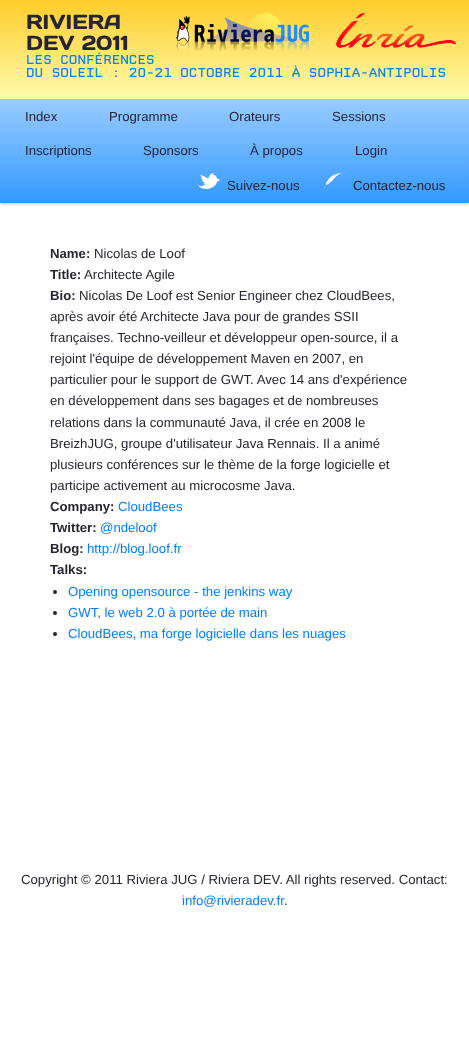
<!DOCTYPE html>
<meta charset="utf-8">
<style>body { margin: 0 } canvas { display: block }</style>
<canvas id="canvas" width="469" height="1037"></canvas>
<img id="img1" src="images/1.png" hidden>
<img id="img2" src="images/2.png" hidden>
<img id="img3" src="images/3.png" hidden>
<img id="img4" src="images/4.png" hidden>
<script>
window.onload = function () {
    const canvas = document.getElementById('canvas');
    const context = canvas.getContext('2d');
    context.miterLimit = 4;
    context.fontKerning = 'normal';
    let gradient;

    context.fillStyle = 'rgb(255, 255, 255)';
    context.fillRect(0, 0, 469, 1037);
    context.fillStyle = 'rgba(0, 0, 0, 0.25)';
    context.filter = 'blur(1.5px)';
    context.beginPath();
    context.rect(0, 1, 469, 203);
    context.fill();
    context.filter = 'none';
    gradient = context.createLinearGradient(0, 0, 0, 99);
    gradient.addColorStop(0, 'rgb(255, 205, 43)');
    gradient.addColorStop(1, 'rgb(255, 251, 172)');
    context.fillStyle = gradient;
    context.fillRect(0, 0, 469, 99);
    context.drawImage(document.getElementById('img1'), 176, 13, 133, 38);
    context.drawImage(document.getElementById('img2'), 336, 13, 120, 35);
    gradient = context.createLinearGradient(0, 99, 0, 203);
    gradient.addColorStop(0, 'rgb(153, 204, 255)');
    gradient.addColorStop(1, 'rgb(51, 153, 255)');
    context.fillStyle = gradient;
    context.fillRect(0, 99, 469, 104);
    context.drawImage(document.getElementById('img3'), 197, 173, 23, 16);
    context.drawImage(document.getElementById('img4'), 324, 173, 18, 15);
    context.fillStyle = 'rgb(39, 36, 51)';
    context.beginPath();
    context.arc(55, 592, 2, 0, 2 * Math.PI);
    context.fill();
    context.beginPath();
    context.arc(55, 613, 2, 0, 2 * Math.PI);
    context.fill();
    context.beginPath();
    context.arc(55, 634, 2, 0, 2 * Math.PI);
    context.fill();
    context.font = '20.5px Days';
    context.fillText('RIVIERA', 26, 29);
    context.fillText('DEV 2011', 26, 50);
    context.font = '300 13.2px "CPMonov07"';
    context.fillStyle = 'rgb(0, 127, 255)';
    context.fillText('LES CONFÉRENCES', 26, 64);
    context.fillText('DU SOLEIL : 20-21 OCTOBRE 2011 À SOPHIA-ANTIPOLIS', 26, 77);
    context.font = '13.2px Liberation Sans';
    context.fillStyle = 'rgb(39, 36, 51)';
    context.fillText('Index', 25, 121);
    context.fillText('Programme', 109, 121);
    context.fillText('Orateurs', 229, 121);
    context.fillText('Sessions', 332, 121);
    context.fillText('Inscriptions', 25, 155);
    context.fillText('Sponsors', 143, 155);
    context.fillText('À propos', 250, 155);
    context.fillText('Login', 355, 155);
    context.fillText('Suivez-nous', 227, 190);
    context.fillText('Contactez-nous', 353, 190);
    context.font = 'bold 13.2px Liberation Sans';
    context.fillText('Name:', 50, 258);
    context.font = '13.2px Liberation Sans';
    context.fillText('Nicolas de Loof', 94, 258);
    context.font = 'bold 13.2px Liberation Sans';
    context.fillText('Title:', 50, 279);
    context.font = '13.2px Liberation Sans';
    context.fillText('Architecte Agile', 84, 279);
    context.font = 'bold 13.2px Liberation Sans';
    context.fillText('Bio:', 50, 300);
    context.font = '13.2px Liberation Sans';
    context.fillText('Nicolas De Loof est Senior Engineer chez CloudBees,', 79, 300);
    context.fillText('après avoir été Architecte Java pour de grandes SSII', 50, 321);
    context.fillText('françaises. Techno-veilleur et développeur open-source, il a', 50, 342);
    context.fillText('rejoint l\'équipe de développement Maven en 2007, en', 50, 363);
    context.fillText('particulier pour le support de GWT. Avec 14 ans d\'expérience', 50, 384);
    context.fillText('en développement dans ses bagages et de nombreuses', 50, 405);
    context.fillText('relations dans la communauté Java, il crée en 2008 le', 50, 427);
    context.fillText('BreizhJUG, groupe d\'utilisateur Java Rennais. Il a animé', 50, 448);
    context.fillText('plusieurs conférences sur le thème de la forge logicielle et', 50, 469);
    context.fillText('participe activement au microcosme Java.', 50, 490);
    context.font = 'bold 13.2px Liberation Sans';
    context.fillText('Company:', 50, 511);
    context.font = '13.2px Liberation Sans';
    context.fillStyle = 'rgb(0, 127, 255)';
    context.fillText('CloudBees', 118, 511);
    context.font = 'bold 13.2px Liberation Sans';
    context.fillStyle = 'rgb(39, 36, 51)';
    context.fillText('Twitter:', 50, 532);
    context.font = '13.2px Liberation Sans';
    context.fillStyle = 'rgb(0, 127, 255)';
    context.fillText('@ndeloof', 100, 532);
    context.font = 'bold 13.2px Liberation Sans';
    context.fillStyle = 'rgb(39, 36, 51)';
    context.fillText('Blog:', 50, 553);
    context.font = '13.2px Liberation Sans';
    context.fillStyle = 'rgb(0, 127, 255)';
    context.fillText('http://blog.loof.fr', 87, 553);
    context.font = 'bold 13.2px Liberation Sans';
    context.fillStyle = 'rgb(39, 36, 51)';
    context.fillText('Talks:', 50, 574);
    context.font = '13.2px Liberation Sans';
    context.fillStyle = 'rgb(0, 127, 255)';
    context.fillText('Opening opensource - the jenkins way', 68, 596);
    context.fillText('GWT, le web 2.0 à portée de main', 68, 617);
    context.fillText('CloudBees, ma forge logicielle dans les nuages', 68, 638);
    context.fillStyle = 'rgb(39, 36, 51)';
    context.fillText('Copyright © 2011 Riviera JUG / Riviera DEV. All rights reserved. Contact:', 21, 884);
    context.fillStyle = 'rgb(0, 127, 255)';
    context.fillText('info@rivieradev.fr', 182, 905);
    context.fillStyle = 'rgb(39, 36, 51)';
    context.fillText('.', 284, 905);
};
</script>
